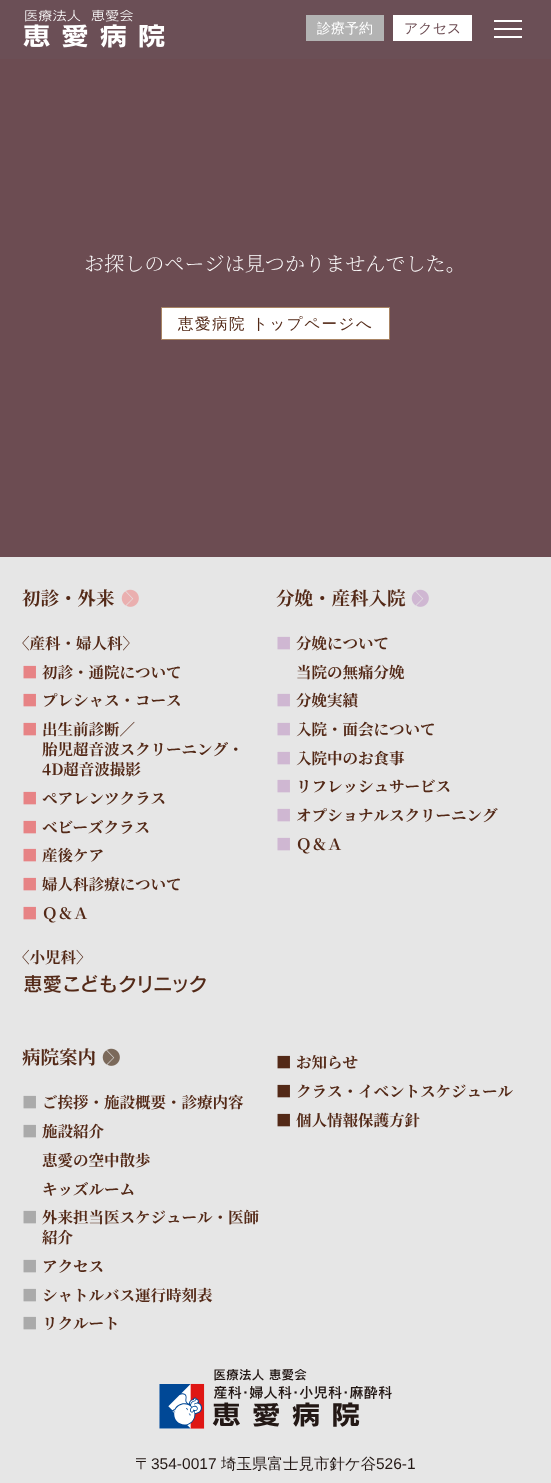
<!DOCTYPE html>
<meta charset="utf-8">
<style>body { margin: 0 } canvas { display: block }</style>
<canvas id="canvas" width="551" height="1483"></canvas>
<img id="img1" src="images/1.png" hidden>
<img id="img2" src="images/2.png" hidden>
<img id="img3" src="images/3.png" hidden>
<img id="img4" src="images/4.png" hidden>
<img id="img5" src="images/5.png" hidden>
<img id="img6" src="images/6.png" hidden>
<script>
window.onload = function () {
    const canvas = document.getElementById('canvas');
    const context = canvas.getContext('2d');
    context.miterLimit = 4;
    context.fontKerning = 'normal';

    context.fillStyle = 'rgb(108, 76, 82)';
    context.fillRect(0, 0, 551, 1483);
    context.fillStyle = 'rgb(107, 79, 86)';
    context.fillRect(0, 0, 551, 59);
    context.drawImage(document.getElementById('img1'), 23, 9, 142, 39);
    context.fillStyle = 'rgb(179, 179, 179)';
    context.fillRect(306, 15, 78, 26);
    context.fillStyle = 'rgb(255, 255, 255)';
    context.fillRect(393, 15, 79, 26);
    context.fillRect(494, 20, 28, 2);
    context.fillRect(494, 28, 28, 2);
    context.fillRect(494, 36, 28, 2);
    context.beginPath();
    context.rect(161.5, 307.5, 228, 32);
    context.fill();
    context.strokeStyle = 'rgb(168, 132, 100)';
    context.stroke();
    context.fillStyle = 'rgb(230, 230, 230)';
    context.fillRect(0, 557, 551, 926);
    context.drawImage(document.getElementById('img2'), 121, 589, 18, 18);
    context.drawImage(document.getElementById('img3'), 24, 975, 182, 18);
    context.drawImage(document.getElementById('img4'), 411, 589, 18, 18);
    context.drawImage(document.getElementById('img5'), 102, 1048, 18, 18);
    context.drawImage(document.getElementById('img6'), 159, 1369, 233, 60);
    context.font = '500 14px WenQuanYi Zen Hei';
    context.fillStyle = 'rgb(255, 255, 255)';
    context.fillText('診療予約', 317, 33);
    context.fillStyle = 'rgb(108, 76, 82)';
    context.fillText('アクセス', 404, 33);
    context.font = '200 20.1px Noto Serif JP';
    context.fillStyle = 'rgb(255, 255, 255)';
    context.fillText('お探しのページは見つかりませんでした。', 84, 271);
    context.letterSpacing = '1.5px';
    context.font = '500 15.5px WenQuanYi Zen Hei';
    context.fillStyle = 'rgb(83, 41, 23)';
    context.fillText('恵愛病院 トップページへ', 178, 329);
    context.letterSpacing = '0px';
    context.font = 'bold 18.5px Noto Serif JP';
    context.fillText('初診・外来', 22, 605);
    context.font = 'bold 15.5px Noto Serif JP';
    context.fillText('〈産科・婦人科〉', 14, 649);
    context.fillStyle = 'rgb(231, 131, 133)';
    context.fillText('■', 22, 678);
    context.fillStyle = 'rgb(83, 41, 23)';
    context.fillText('初診・通院について', 42, 678);
    context.fillStyle = 'rgb(231, 131, 133)';
    context.fillText('■', 22, 706);
    context.fillStyle = 'rgb(83, 41, 23)';
    context.fillText('プレシャス・コース', 42, 706);
    context.fillStyle = 'rgb(231, 131, 133)';
    context.fillText('■', 22, 735);
    context.fillStyle = 'rgb(83, 41, 23)';
    context.fillText('出生前診断／', 42, 735);
    context.fillText('胎児超音波スクリーニング・', 42, 755);
    context.fillText('4D超音波撮影', 42, 775);
    context.fillStyle = 'rgb(231, 131, 133)';
    context.fillText('■', 22, 804);
    context.fillStyle = 'rgb(83, 41, 23)';
    context.fillText('ペアレンツクラス', 42, 804);
    context.fillStyle = 'rgb(231, 131, 133)';
    context.fillText('■', 22, 833);
    context.fillStyle = 'rgb(83, 41, 23)';
    context.fillText('ベビーズクラス', 42, 833);
    context.fillStyle = 'rgb(231, 131, 133)';
    context.fillText('■', 22, 861);
    context.fillStyle = 'rgb(83, 41, 23)';
    context.fillText('産後ケア', 42, 861);
    context.fillStyle = 'rgb(231, 131, 133)';
    context.fillText('■', 22, 890);
    context.fillStyle = 'rgb(83, 41, 23)';
    context.fillText('婦人科診療について', 42, 890);
    context.fillStyle = 'rgb(231, 131, 133)';
    context.fillText('■', 22, 919);
    context.fillStyle = 'rgb(83, 41, 23)';
    context.fillText('Ｑ＆Ａ', 42, 919);
    context.fillText('〈小児科〉', 14, 963);
    context.font = 'bold 18.5px Noto Serif JP';
    context.fillText('分娩・産科入院', 276, 605);
    context.font = 'bold 15.5px Noto Serif JP';
    context.fillStyle = 'rgb(207, 183, 210)';
    context.fillText('■', 276, 649);
    context.fillStyle = 'rgb(83, 41, 23)';
    context.fillText('分娩について', 296, 649);
    context.fillText('当院の無痛分娩', 296, 678);
    context.fillStyle = 'rgb(207, 183, 210)';
    context.fillText('■', 276, 706);
    context.fillStyle = 'rgb(83, 41, 23)';
    context.fillText('分娩実績', 296, 706);
    context.fillStyle = 'rgb(207, 183, 210)';
    context.fillText('■', 276, 735);
    context.fillStyle = 'rgb(83, 41, 23)';
    context.fillText('入院・面会について', 296, 735);
    context.fillStyle = 'rgb(207, 183, 210)';
    context.fillText('■', 276, 764);
    context.fillStyle = 'rgb(83, 41, 23)';
    context.fillText('入院中のお食事', 296, 764);
    context.fillStyle = 'rgb(207, 183, 210)';
    context.fillText('■', 276, 792);
    context.fillStyle = 'rgb(83, 41, 23)';
    context.fillText('リフレッシュサービス', 296, 792);
    context.fillStyle = 'rgb(207, 183, 210)';
    context.fillText('■', 276, 821);
    context.fillStyle = 'rgb(83, 41, 23)';
    context.fillText('オプショナルスクリーニング', 296, 821);
    context.fillStyle = 'rgb(207, 183, 210)';
    context.fillText('■', 276, 850);
    context.fillStyle = 'rgb(83, 41, 23)';
    context.fillText('Ｑ＆Ａ', 296, 850);
    context.font = 'bold 18.5px Noto Serif JP';
    context.fillText('病院案内', 22, 1064);
    context.font = 'bold 15.5px Noto Serif JP';
    context.fillStyle = 'rgb(170, 170, 170)';
    context.fillText('■', 22, 1108);
    context.fillStyle = 'rgb(83, 41, 23)';
    context.fillText('ご挨拶・施設概要・診療内容', 42, 1108);
    context.fillStyle = 'rgb(170, 170, 170)';
    context.fillText('■', 22, 1137);
    context.fillStyle = 'rgb(83, 41, 23)';
    context.fillText('施設紹介', 42, 1137);
    context.fillText('恵愛の空中散歩', 42, 1166);
    context.fillText('キッズルーム', 42, 1195);
    context.fillStyle = 'rgb(170, 170, 170)';
    context.fillText('■', 22, 1223);
    context.fillStyle = 'rgb(83, 41, 23)';
    context.fillText('外来担当医スケジュール・医師', 42, 1223);
    context.fillText('紹介', 42, 1243);
    context.fillStyle = 'rgb(170, 170, 170)';
    context.fillText('■', 22, 1272);
    context.fillStyle = 'rgb(83, 41, 23)';
    context.fillText('アクセス', 42, 1272);
    context.fillStyle = 'rgb(170, 170, 170)';
    context.fillText('■', 22, 1301);
    context.fillStyle = 'rgb(83, 41, 23)';
    context.fillText('シャトルバス運行時刻表', 42, 1301);
    context.fillStyle = 'rgb(170, 170, 170)';
    context.fillText('■', 22, 1329);
    context.fillStyle = 'rgb(83, 41, 23)';
    context.fillText('リクルート', 42, 1329);
    context.fillText('■', 276, 1068);
    context.fillText('お知らせ', 296, 1068);
    context.fillText('■', 276, 1097);
    context.fillText('クラス・イベントスケジュール', 296, 1097);
    context.fillText('■', 276, 1126);
    context.fillText('個人情報保護方針', 296, 1126);
    context.font = '500 15.5px WenQuanYi Zen Hei';
    context.fillStyle = 'rgb(35, 24, 21)';
    context.fillText('〒', 135, 1469);
    context.font = '15.5px Liberation Sans';
    context.fillText('354-0017', 151, 1469);
    context.font = '500 15.5px WenQuanYi Zen Hei';
    context.fillText('埼玉県富士見市針ケ谷', 221, 1469);
    context.font = '15.5px Liberation Sans';
    context.fillText('526-1', 376, 1469);
};
</script>
